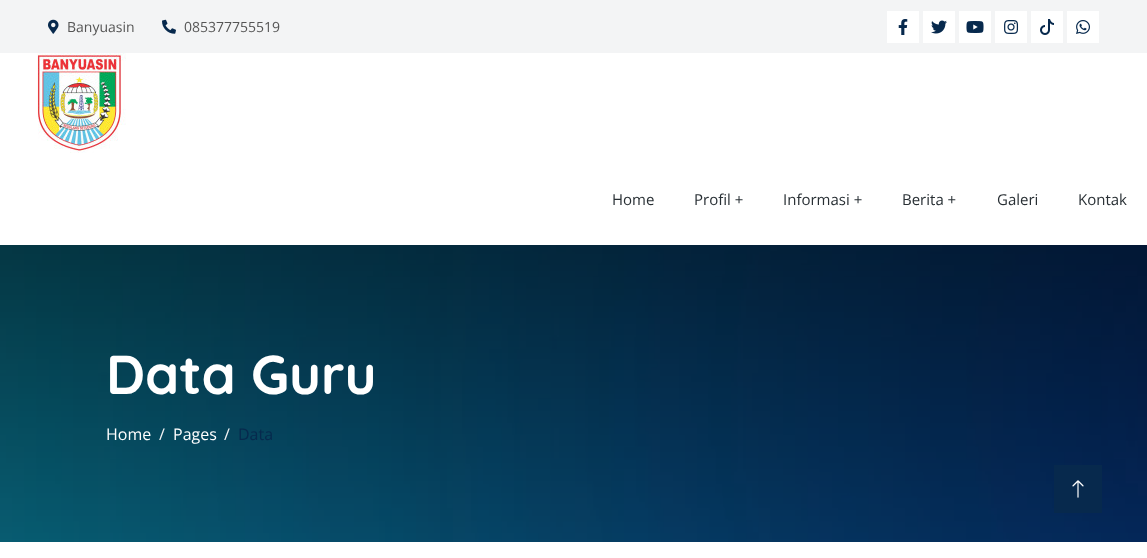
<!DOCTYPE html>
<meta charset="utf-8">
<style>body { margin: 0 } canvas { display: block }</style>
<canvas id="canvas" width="1147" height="558"></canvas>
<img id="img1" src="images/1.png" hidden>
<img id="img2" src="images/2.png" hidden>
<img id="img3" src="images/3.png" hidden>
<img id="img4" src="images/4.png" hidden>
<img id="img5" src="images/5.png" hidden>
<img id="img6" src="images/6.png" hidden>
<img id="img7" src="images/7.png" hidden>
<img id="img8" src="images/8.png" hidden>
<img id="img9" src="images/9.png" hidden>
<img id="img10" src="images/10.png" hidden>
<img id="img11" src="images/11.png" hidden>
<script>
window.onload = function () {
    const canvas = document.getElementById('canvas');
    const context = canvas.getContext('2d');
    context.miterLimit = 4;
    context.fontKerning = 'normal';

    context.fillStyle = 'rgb(255, 255, 255)';
    context.fillRect(0, 0, 1147, 558);
    context.fillStyle = 'rgb(243, 244, 245)';
    context.fillRect(0, 0, 1147, 53);
    context.drawImage(document.getElementById('img1'), 48, 19, 11, 15);
    context.drawImage(document.getElementById('img2'), 162, 19, 14, 15);
    context.fillStyle = 'rgb(255, 255, 255)';
    context.fillRect(887, 11, 32, 32);
    context.drawImage(document.getElementById('img3'), 898, 19, 10, 16);
    context.fillRect(923, 11, 32, 32);
    context.drawImage(document.getElementById('img4'), 931, 20, 16, 14);
    context.fillRect(959, 11, 32, 32);
    context.drawImage(document.getElementById('img5'), 966, 21, 18, 12);
    context.fillRect(995, 11, 32, 32);
    context.drawImage(document.getElementById('img6'), 1004, 20, 15, 14);
    context.fillRect(1031, 11, 32, 32);
    context.drawImage(document.getElementById('img7'), 1040, 19, 14, 16);
    context.fillRect(1067, 11, 32, 32);
    context.drawImage(document.getElementById('img8'), 1076, 20, 14, 14);
    context.drawImage(document.getElementById('img9'), 37, 53, 89, 100);
    context.drawImage(document.getElementById('img10'), 0, 245, 1147, 297);
    context.fillStyle = 'rgb(7, 41, 77)';
    context.fillRect(1054, 465, 48, 48);
    context.drawImage(document.getElementById('img11'), 1072, 480, 12, 18);
    context.font = '14px Open Sans';
    context.fillStyle = 'rgb(85, 85, 85)';
    context.fillText('Banyuasin', 67, 32);
    context.fillText('085377755519', 184, 32);
    context.font = '15px Open Sans';
    context.fillStyle = 'rgb(40, 47, 52)';
    context.fillText('Home', 612, 205);
    context.fillText('Profil +', 694, 205);
    context.fillText('Informasi +', 783, 205);
    context.fillText('Berita +', 902, 205);
    context.fillText('Galeri', 997, 205);
    context.fillText('Kontak', 1078, 205);
    context.font = 'bold 54.5px Quicksand';
    context.fillStyle = 'rgb(255, 255, 255)';
    context.fillText('Data Guru', 106, 394);
    context.font = '16px Open Sans';
    context.fillText('Home', 106, 440);
    context.fillStyle = 'rgb(243, 244, 245)';
    context.fillText('/', 159, 440);
    context.fillStyle = 'rgb(255, 255, 255)';
    context.fillText('Pages', 173, 440);
    context.fillStyle = 'rgb(243, 244, 245)';
    context.fillText('/', 224, 440);
    context.fillStyle = 'rgb(7, 41, 77)';
    context.fillText('Data', 238, 440);
};
</script>
